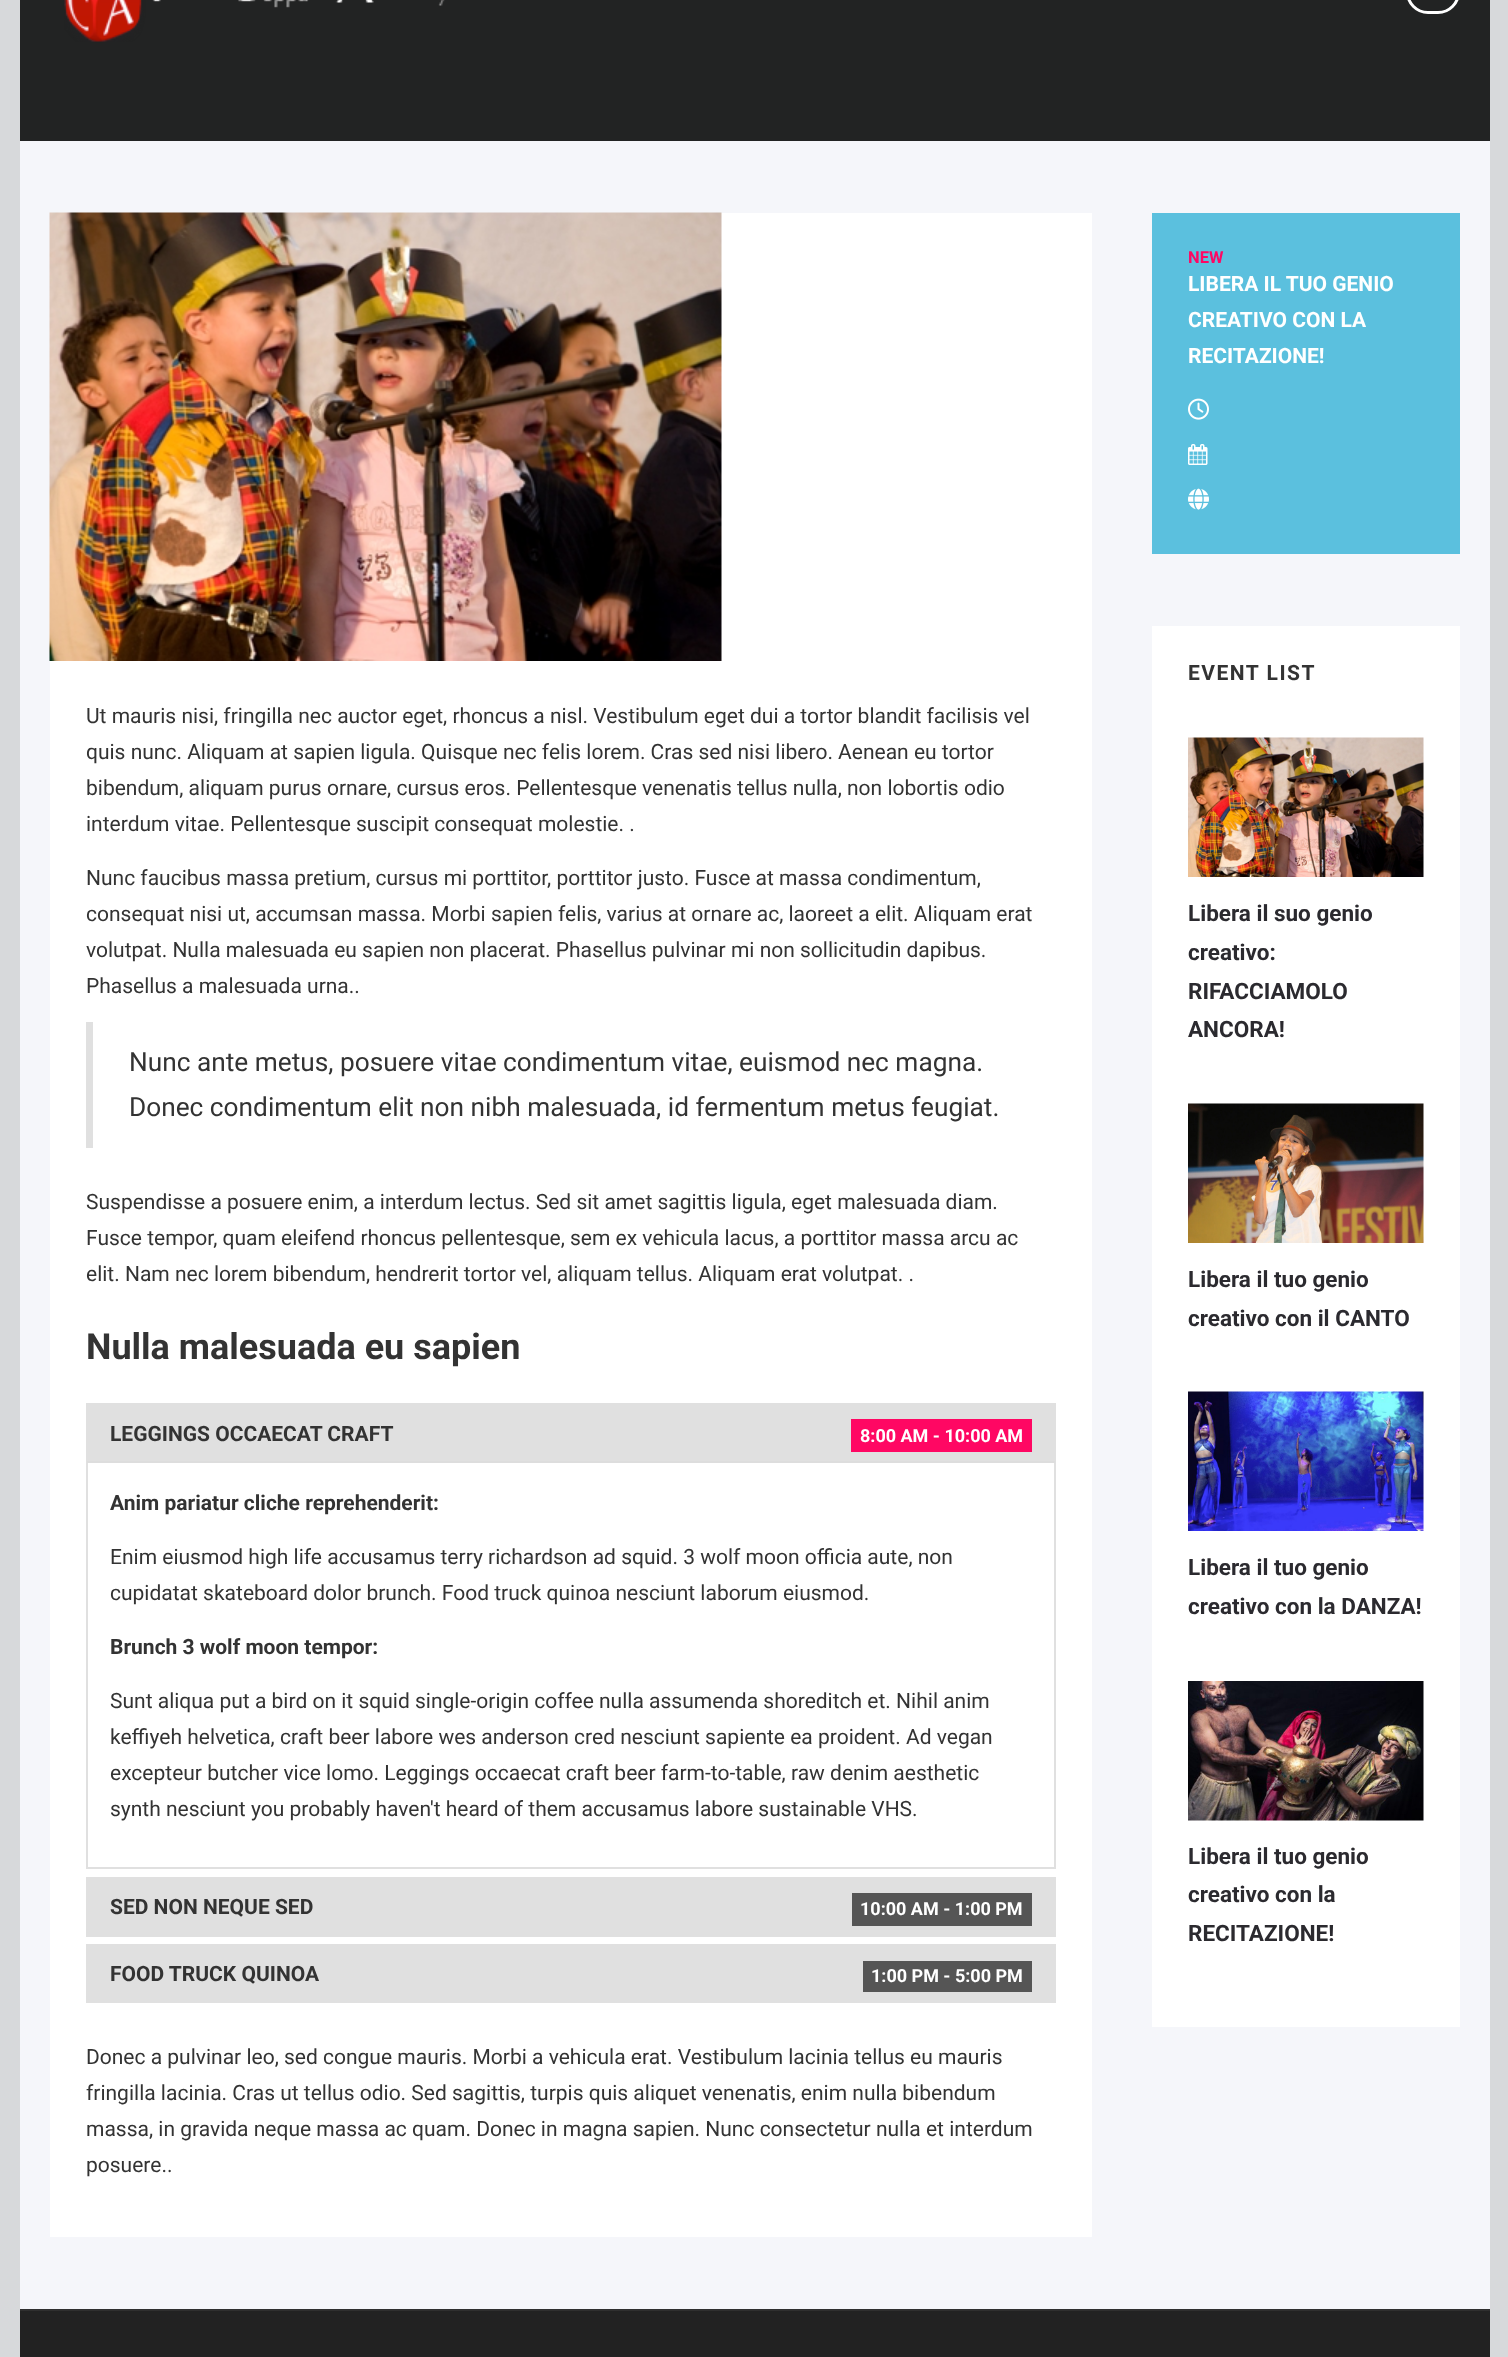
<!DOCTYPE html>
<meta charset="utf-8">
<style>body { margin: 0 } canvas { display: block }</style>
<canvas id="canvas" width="1508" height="2357"></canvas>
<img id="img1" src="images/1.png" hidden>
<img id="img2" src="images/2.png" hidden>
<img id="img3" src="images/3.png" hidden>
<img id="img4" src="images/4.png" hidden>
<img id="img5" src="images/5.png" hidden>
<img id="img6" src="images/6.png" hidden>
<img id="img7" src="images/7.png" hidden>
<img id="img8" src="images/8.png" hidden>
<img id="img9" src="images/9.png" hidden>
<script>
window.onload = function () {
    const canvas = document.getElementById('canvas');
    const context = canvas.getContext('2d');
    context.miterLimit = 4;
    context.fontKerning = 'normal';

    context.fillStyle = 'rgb(215, 217, 219)';
    context.fillRect(0, 0, 1508, 2357);
    context.fillStyle = 'rgb(245, 246, 250)';
    context.fillRect(20, 141, 1470, 2168);
    context.fillStyle = 'rgb(34, 35, 35)';
    context.fillRect(20, 0, 1470, 141);
    context.beginPath();
    context.roundRect(1407.5, -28.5, 51, 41, 25.5);
    context.strokeStyle = 'rgb(255, 255, 255)';
    context.lineWidth = 3;
    context.stroke();
    context.drawImage(document.getElementById('img1'), 64, 0, 381, 42);
    context.fillStyle = 'rgb(255, 255, 255)';
    context.fillRect(50, 213, 1042, 2024);
    context.drawImage(document.getElementById('img2'), 49, 212, 673, 449);
    context.fillStyle = 'rgb(224, 224, 224)';
    context.fillRect(86, 1022, 7, 126);
    context.strokeStyle = 'rgb(224, 224, 224)';
    context.lineWidth = 2;
    context.strokeRect(87, 1404, 968, 464);
    context.fillRect(88, 1405, 966, 56);
    context.fillStyle = 'rgb(255, 7, 99)';
    context.fillRect(851, 1419, 181, 33);
    context.fillStyle = 'rgb(221, 221, 221)';
    context.fillRect(87, 1461, 968, 2);
    context.strokeRect(87, 1878, 968, 58);
    context.fillStyle = 'rgb(224, 224, 224)';
    context.fillRect(88, 1879, 966, 56);
    context.fillStyle = 'rgb(85, 85, 85)';
    context.fillRect(852, 1893, 180, 33);
    context.strokeRect(87, 1945, 968, 57);
    context.fillStyle = 'rgb(224, 224, 224)';
    context.fillRect(88, 1946, 966, 55);
    context.fillStyle = 'rgb(85, 85, 85)';
    context.fillRect(863, 1961, 169, 31);
    context.fillStyle = 'rgb(91, 192, 222)';
    context.fillRect(1152, 213, 308, 341);
    context.drawImage(document.getElementById('img3'), 1188, 398, 21, 22);
    context.drawImage(document.getElementById('img4'), 1188, 444, 20, 21);
    context.drawImage(document.getElementById('img5'), 1188, 488, 21, 22);
    context.fillStyle = 'rgb(255, 255, 255)';
    context.fillRect(1152, 626, 308, 1401);
    context.drawImage(document.getElementById('img6'), 1188, 737, 236, 140);
    context.drawImage(document.getElementById('img7'), 1188, 1103, 236, 140);
    context.drawImage(document.getElementById('img8'), 1188, 1391, 236, 140);
    context.drawImage(document.getElementById('img9'), 1188, 1681, 236, 140);
    context.fillStyle = 'rgb(34, 34, 34)';
    context.fillRect(20, 2311, 1470, 46);
    context.fillStyle = 'rgb(47, 47, 47)';
    context.fillRect(20, 2309, 1470, 2);
    context.font = '21px Roboto';
    context.fillStyle = 'rgb(51, 51, 51)';
    context.fillText('Ut mauris nisi, fringilla nec auctor eget, rhoncus a nisl. Vestibulum eget dui a tortor blandit facilisis vel', 86, 723);
    context.fillText('quis nunc. Aliquam at sapien ligula. Quisque nec felis lorem. Cras sed nisi libero. Aenean eu tortor', 86, 759);
    context.fillText('bibendum, aliquam purus ornare, cursus eros. Pellentesque venenatis tellus nulla, non lobortis odio', 86, 795);
    context.fillText('interdum vitae. Pellentesque suscipit consequat molestie. .', 86, 831);
    context.fillText('Nunc faucibus massa pretium, cursus mi porttitor, porttitor justo. Fusce at massa condimentum,', 86, 885);
    context.fillText('consequat nisi ut, accumsan massa. Morbi sapien felis, varius at ornare ac, laoreet a elit. Aliquam erat', 86, 921);
    context.fillText('volutpat. Nulla malesuada eu sapien non placerat. Phasellus pulvinar mi non sollicitudin dapibus.', 86, 957);
    context.fillText('Phasellus a malesuada urna..', 86, 993);
    context.font = '26.25px Roboto';
    context.fillText('Nunc ante metus, posuere vitae condimentum vitae, euismod nec magna.', 129, 1071);
    context.fillText('Donec condimentum elit non nibh malesuada, id fermentum metus feugiat.', 129, 1116);
    context.font = '21px Roboto';
    context.fillText('Suspendisse a posuere enim, a interdum lectus. Sed sit amet sagittis ligula, eget malesuada diam.', 86, 1209);
    context.fillText('Fusce tempor, quam eleifend rhoncus pellentesque, sem ex vehicula lacus, a porttitor massa arcu ac', 86, 1245);
    context.fillText('elit. Nam nec lorem bibendum, hendrerit tortor vel, aliquam tellus. Aliquam erat volutpat. .', 86, 1281);
    context.font = 'bold 36px Roboto';
    context.fillText('Nulla malesuada eu sapien', 86, 1359);
    context.font = 'bold 21px Roboto';
    context.fillText('LEGGINGS OCCAECAT CRAFT', 110, 1441);
    context.font = 'bold 18px Roboto';
    context.fillStyle = 'rgb(255, 255, 255)';
    context.fillText('8:00 AM - 10:00 AM', 860, 1442);
    context.font = 'bold 21px Roboto';
    context.fillStyle = 'rgb(51, 51, 51)';
    context.fillText('Anim pariatur cliche reprehenderit:', 110, 1510);
    context.font = '21px Roboto';
    context.fillText('Enim eiusmod high life accusamus terry richardson ad squid. 3 wolf moon officia aute, non', 110, 1564);
    context.fillText('cupidatat skateboard dolor brunch. Food truck quinoa nesciunt laborum eiusmod.', 110, 1600);
    context.font = 'bold 21px Roboto';
    context.fillText('Brunch 3 wolf moon tempor:', 110, 1654);
    context.font = '21px Roboto';
    context.fillText('Sunt aliqua put a bird on it squid single-origin coffee nulla assumenda shoreditch et. Nihil anim', 110, 1708);
    context.fillText('keffiyeh helvetica, craft beer labore wes anderson cred nesciunt sapiente ea proident. Ad vegan', 110, 1744);
    context.fillText('excepteur butcher vice lomo. Leggings occaecat craft beer farm-to-table, raw denim aesthetic', 110, 1780);
    context.fillText('synth nesciunt you probably haven\'t heard of them accusamus labore sustainable VHS.', 110, 1816);
    context.font = 'bold 21px Roboto';
    context.fillText('SED NON NEQUE SED', 110, 1914);
    context.font = 'bold 18px Roboto';
    context.fillStyle = 'rgb(255, 255, 255)';
    context.fillText('10:00 AM - 1:00 PM', 860, 1915);
    context.font = 'bold 21px Roboto';
    context.fillStyle = 'rgb(51, 51, 51)';
    context.fillText('FOOD TRUCK QUINOA', 110, 1981);
    context.font = 'bold 18px Roboto';
    context.fillStyle = 'rgb(255, 255, 255)';
    context.fillText('1:00 PM - 5:00 PM', 871, 1982);
    context.font = '21px Roboto';
    context.fillStyle = 'rgb(51, 51, 51)';
    context.fillText('Donec a pulvinar leo, sed congue mauris. Morbi a vehicula erat. Vestibulum lacinia tellus eu mauris', 86, 2064);
    context.fillText('fringilla lacinia. Cras ut tellus odio. Sed sagittis, turpis quis aliquet venenatis, enim nulla bibendum', 86, 2100);
    context.fillText('massa, in gravida neque massa ac quam. Donec in magna sapien. Nunc consectetur nulla et interdum', 86, 2136);
    context.fillText('posuere..', 86, 2172);
    context.font = 'bold 16.5px Roboto';
    context.fillStyle = 'rgb(255, 7, 99)';
    context.fillText('NEW', 1188, 263);
    context.font = 'bold 21px Roboto';
    context.fillStyle = 'rgb(255, 255, 255)';
    context.fillText('LIBERA IL TUO GENIO', 1188, 291);
    context.fillText('CREATIVO CON LA', 1188, 327);
    context.fillText('RECITAZIONE!', 1188, 363);
    context.letterSpacing = '1.5px';
    context.fillStyle = 'rgb(51, 51, 51)';
    context.fillText('EVENT LIST', 1188, 680);
    context.letterSpacing = '0px';
    context.font = 'bold 22.5px Roboto';
    context.fillStyle = 'rgb(43, 42, 47)';
    context.fillText('Libera il suo genio', 1188, 921);
    context.fillText('creativo:', 1188, 960);
    context.fillText('RIFACCIAMOLO', 1188, 999);
    context.fillText('ANCORA!', 1188, 1037);
    context.fillText('Libera il tuo genio', 1188, 1287);
    context.fillText('creativo con il CANTO', 1188, 1326);
    context.fillText('Libera il tuo genio', 1188, 1575);
    context.fillText('creativo con la DANZA!', 1188, 1614);
    context.fillText('Libera il tuo genio', 1188, 1864);
    context.fillText('creativo con la', 1188, 1902);
    context.fillText('RECITAZIONE!', 1188, 1941);
};
</script>
